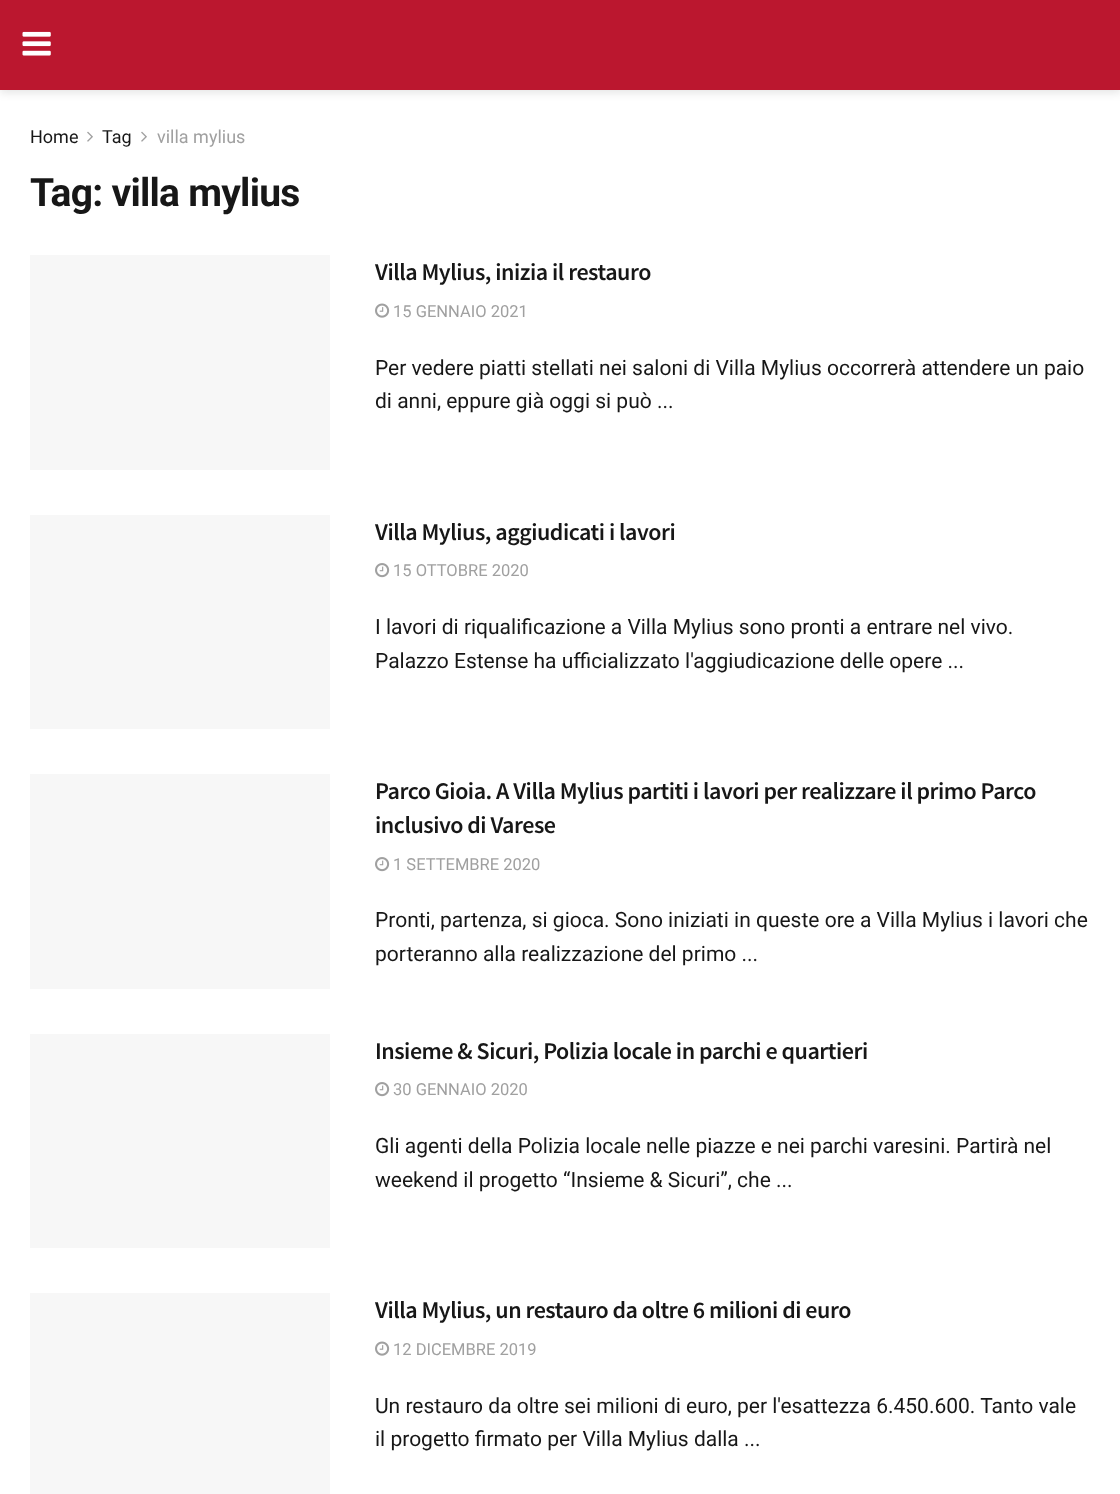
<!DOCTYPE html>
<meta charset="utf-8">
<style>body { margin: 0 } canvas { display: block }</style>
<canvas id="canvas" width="1120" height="1494"></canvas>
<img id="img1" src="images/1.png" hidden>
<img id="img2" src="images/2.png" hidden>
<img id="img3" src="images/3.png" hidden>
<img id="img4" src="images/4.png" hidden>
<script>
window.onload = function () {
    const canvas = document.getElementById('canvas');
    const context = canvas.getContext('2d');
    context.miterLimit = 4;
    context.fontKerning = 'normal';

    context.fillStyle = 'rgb(255, 255, 255)';
    context.fillRect(0, 0, 1120, 1494);
    context.fillStyle = 'rgba(0, 0, 0, 0.1)';
    context.filter = 'blur(4.5px)';
    context.beginPath();
    context.rect(0, 3, 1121, 90);
    context.fill();
    context.filter = 'none';
    context.fillStyle = 'rgb(187, 23, 47)';
    context.fillRect(0, 0, 1120, 90);
    context.drawImage(document.getElementById('img1'), 22, 31, 29, 25);
    context.drawImage(document.getElementById('img2'), 87, 131, 6, 11);
    context.drawImage(document.getElementById('img2'), 141, 131, 6, 11);
    context.fillStyle = 'rgb(247, 247, 247)';
    context.fillRect(30, 255, 300, 215);
    context.drawImage(document.getElementById('img3'), 375, 303, 15, 15);
    context.fillRect(30, 515, 300, 214);
    context.drawImage(document.getElementById('img4'), 375, 563, 15, 15);
    context.fillRect(30, 774, 300, 215);
    context.drawImage(document.getElementById('img4'), 375, 857, 15, 15);
    context.fillRect(30, 1034, 300, 214);
    context.drawImage(document.getElementById('img4'), 375, 1082, 15, 15);
    context.fillRect(30, 1293, 300, 201);
    context.drawImage(document.getElementById('img3'), 375, 1341, 15, 15);
    context.font = '18px Roboto';
    context.fillStyle = 'rgb(23, 23, 23)';
    context.fillText('Home', 30, 143);
    context.fillText('Tag', 102, 143);
    context.fillStyle = 'rgb(160, 160, 160)';
    context.fillText('villa mylius', 157, 143);
    context.letterSpacing = '-0.75px';
    context.font = 'bold 39px Roboto';
    context.fillStyle = 'rgb(23, 23, 23)';
    context.fillText('Tag: villa mylius', 30, 206);
    context.letterSpacing = '-0.48px';
    context.font = '600 24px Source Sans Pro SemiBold';
    context.fillText('Villa Mylius, inizia il restauro', 375, 280);
    context.letterSpacing = '0px';
    context.font = '16.5px Roboto';
    context.fillStyle = 'rgb(160, 160, 160)';
    context.fillText('15 GENNAIO 2021', 393, 317);
    context.font = '21px Roboto';
    context.fillStyle = 'rgb(23, 23, 23)';
    context.fillText('Per vedere piatti stellati nei saloni di Villa Mylius occorrerà attendere un paio', 375, 375);
    context.fillText('di anni, eppure già oggi si può ...', 375, 408);
    context.letterSpacing = '-0.48px';
    context.font = '600 24px Source Sans Pro SemiBold';
    context.fillText('Villa Mylius, aggiudicati i lavori', 375, 540);
    context.letterSpacing = '0px';
    context.font = '16.5px Roboto';
    context.fillStyle = 'rgb(160, 160, 160)';
    context.fillText('15 OTTOBRE 2020', 393, 576);
    context.font = '21px Roboto';
    context.fillStyle = 'rgb(23, 23, 23)';
    context.fillText('I lavori di riqualificazione a Villa Mylius sono pronti a entrare nel vivo.', 375, 634);
    context.fillText('Palazzo Estense ha ufficializzato l\'aggiudicazione delle opere ...', 375, 668);
    context.letterSpacing = '-0.48px';
    context.font = '600 24px Source Sans Pro SemiBold';
    context.fillText('Parco Gioia. A Villa Mylius partiti i lavori per realizzare il primo Parco', 375, 799);
    context.fillText('inclusivo di Varese', 375, 833);
    context.letterSpacing = '0px';
    context.font = '16.5px Roboto';
    context.fillStyle = 'rgb(160, 160, 160)';
    context.fillText('1 SETTEMBRE 2020', 393, 870);
    context.font = '21px Roboto';
    context.fillStyle = 'rgb(23, 23, 23)';
    context.fillText('Pronti, partenza, si gioca. Sono iniziati in queste ore a Villa Mylius i lavori che', 375, 927);
    context.fillText('porteranno alla realizzazione del primo ...', 375, 961);
    context.letterSpacing = '-0.48px';
    context.font = '600 24px Source Sans Pro SemiBold';
    context.fillText('Insieme & Sicuri, Polizia locale in parchi e quartieri', 375, 1059);
    context.letterSpacing = '0px';
    context.font = '16.5px Roboto';
    context.fillStyle = 'rgb(160, 160, 160)';
    context.fillText('30 GENNAIO 2020', 393, 1095);
    context.font = '21px Roboto';
    context.fillStyle = 'rgb(23, 23, 23)';
    context.fillText('Gli agenti della Polizia locale nelle piazze e nei parchi varesini. Partirà nel', 375, 1153);
    context.fillText('weekend il progetto “Insieme & Sicuri”, che ...', 375, 1187);
    context.letterSpacing = '-0.48px';
    context.font = '600 24px Source Sans Pro SemiBold';
    context.fillText('Villa Mylius, un restauro da oltre 6 milioni di euro', 375, 1318);
    context.letterSpacing = '0px';
    context.font = '16.5px Roboto';
    context.fillStyle = 'rgb(160, 160, 160)';
    context.fillText('12 DICEMBRE 2019', 393, 1355);
    context.font = '21px Roboto';
    context.fillStyle = 'rgb(23, 23, 23)';
    context.fillText('Un restauro da oltre sei milioni di euro, per l\'esattezza 6.450.600. Tanto vale', 375, 1413);
    context.fillText('il progetto firmato per Villa Mylius dalla ...', 375, 1446);
};
</script>
